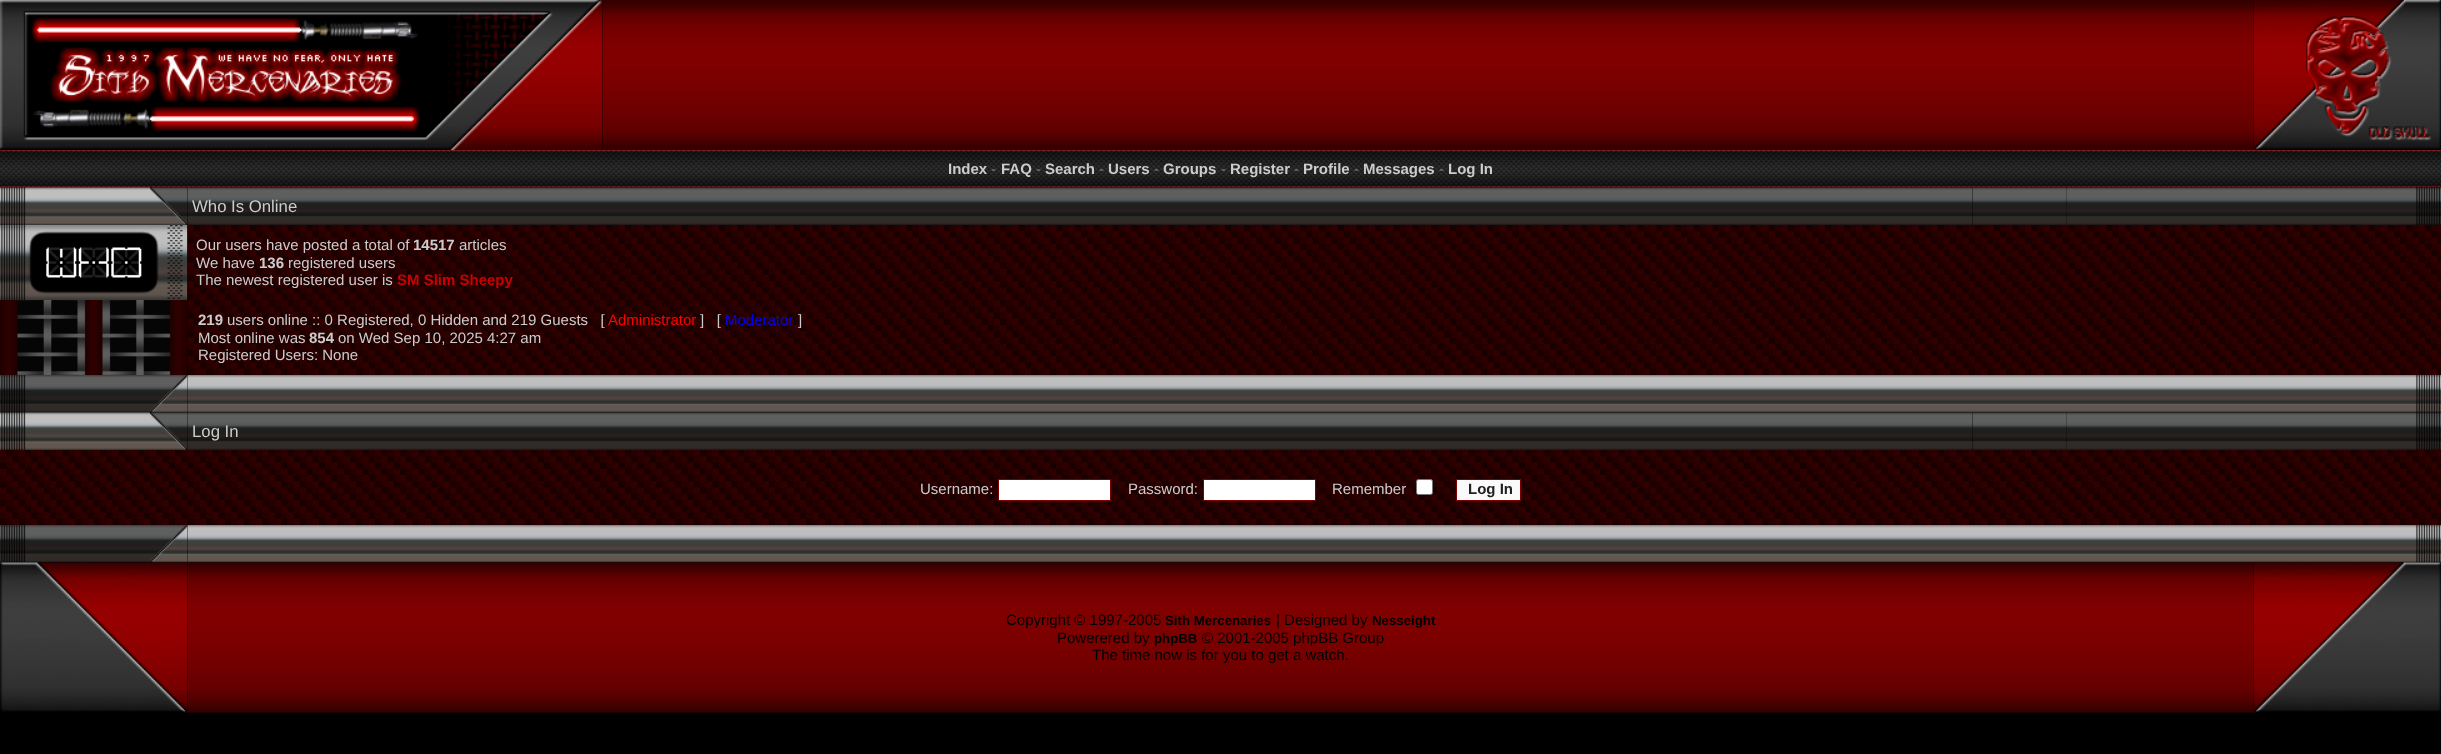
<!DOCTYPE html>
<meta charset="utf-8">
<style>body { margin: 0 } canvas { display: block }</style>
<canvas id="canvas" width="2441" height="754"></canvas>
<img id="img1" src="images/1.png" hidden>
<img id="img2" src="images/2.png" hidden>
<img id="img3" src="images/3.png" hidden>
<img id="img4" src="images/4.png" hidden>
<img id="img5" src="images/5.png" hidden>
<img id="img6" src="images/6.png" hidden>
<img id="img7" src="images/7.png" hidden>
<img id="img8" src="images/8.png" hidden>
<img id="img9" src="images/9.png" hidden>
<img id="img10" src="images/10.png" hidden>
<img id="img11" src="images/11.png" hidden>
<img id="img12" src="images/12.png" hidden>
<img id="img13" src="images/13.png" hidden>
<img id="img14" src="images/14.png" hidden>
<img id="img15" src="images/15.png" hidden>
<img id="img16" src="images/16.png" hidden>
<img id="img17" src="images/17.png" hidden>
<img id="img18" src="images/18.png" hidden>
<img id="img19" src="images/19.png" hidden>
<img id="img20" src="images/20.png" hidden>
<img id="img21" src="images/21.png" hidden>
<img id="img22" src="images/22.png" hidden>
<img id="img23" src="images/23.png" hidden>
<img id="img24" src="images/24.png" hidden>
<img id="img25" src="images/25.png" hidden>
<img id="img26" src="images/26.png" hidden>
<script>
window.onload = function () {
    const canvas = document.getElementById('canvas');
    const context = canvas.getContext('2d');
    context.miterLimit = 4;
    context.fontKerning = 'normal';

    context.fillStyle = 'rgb(0, 0, 0)';
    context.fillRect(0, 0, 2441, 754);
    context.drawImage(document.getElementById('img1'), 0, 0, 603, 150);
    context.drawImage(document.getElementById('img2'), 602, 0, 1652, 150);
    context.drawImage(document.getElementById('img3'), 2253, 0, 188, 150);
    context.drawImage(document.getElementById('img4'), 0, 150, 2441, 38);
    context.drawImage(document.getElementById('img5'), 0, 187, 188, 38);
    context.drawImage(document.getElementById('img6'), 187, 187, 1786, 38);
    context.drawImage(document.getElementById('img7'), 1972, 187, 95, 38);
    context.drawImage(document.getElementById('img8'), 2066, 187, 94, 38);
    context.drawImage(document.getElementById('img9'), 2160, 187, 281, 38);
    context.drawImage(document.getElementById('img10'), 0, 225, 188, 75);
    context.drawImage(document.getElementById('img11'), 46, 247, 96, 31);
    context.drawImage(document.getElementById('img12'), 187, 225, 2254, 75);
    context.drawImage(document.getElementById('img13'), 0, 300, 188, 75);
    context.drawImage(document.getElementById('img14'), 187, 300, 2254, 75);
    context.drawImage(document.getElementById('img15'), 0, 375, 188, 38);
    context.drawImage(document.getElementById('img16'), 187, 375, 1973, 38);
    context.drawImage(document.getElementById('img17'), 2160, 375, 281, 38);
    context.drawImage(document.getElementById('img18'), 0, 412, 188, 38);
    context.drawImage(document.getElementById('img19'), 187, 412, 1786, 38);
    context.drawImage(document.getElementById('img20'), 1972, 412, 95, 38);
    context.drawImage(document.getElementById('img21'), 2066, 412, 94, 38);
    context.drawImage(document.getElementById('img22'), 2160, 412, 281, 38);
    context.drawImage(document.getElementById('img23'), 0, 450, 2441, 75);
    context.fillStyle = 'rgb(255, 255, 255)';
    context.beginPath();
    context.rect(998.5, 479.5, 112, 21);
    context.fill();
    context.strokeStyle = 'rgb(128, 0, 0)';
    context.stroke();
    context.beginPath();
    context.rect(1203.5, 479.5, 112, 21);
    context.fill();
    context.stroke();
    context.beginPath();
    context.roundRect(1416.5, 479.5, 16, 15, 2);
    context.fill();
    context.strokeStyle = 'rgb(118, 118, 118)';
    context.stroke();
    context.fillStyle = 'rgb(250, 250, 250)';
    context.beginPath();
    context.rect(1456.5, 479.5, 64, 21);
    context.fill();
    context.strokeStyle = 'rgb(128, 0, 0)';
    context.stroke();
    context.drawImage(document.getElementById('img15'), 0, 525, 188, 38);
    context.drawImage(document.getElementById('img16'), 187, 525, 1973, 38);
    context.drawImage(document.getElementById('img17'), 2160, 525, 281, 38);
    context.drawImage(document.getElementById('img24'), 0, 562, 188, 151);
    context.drawImage(document.getElementById('img25'), 187, 562, 2067, 151);
    context.drawImage(document.getElementById('img26'), 2253, 562, 188, 151);
    context.font = 'bold 15px Liberation Sans';
    context.fillStyle = 'rgb(204, 204, 204)';
    context.fillText('Index', 948, 174);
    context.font = '15px Liberation Sans';
    context.fillStyle = 'rgb(128, 128, 128)';
    context.fillText('-', 991, 174);
    context.font = 'bold 15px Liberation Sans';
    context.fillStyle = 'rgb(204, 204, 204)';
    context.fillText('FAQ', 1001, 174);
    context.font = '15px Liberation Sans';
    context.fillStyle = 'rgb(128, 128, 128)';
    context.fillText('-', 1036, 174);
    context.font = 'bold 15px Liberation Sans';
    context.fillStyle = 'rgb(204, 204, 204)';
    context.fillText('Search', 1045, 174);
    context.font = '15px Liberation Sans';
    context.fillStyle = 'rgb(128, 128, 128)';
    context.fillText('-', 1099, 174);
    context.font = 'bold 15px Liberation Sans';
    context.fillStyle = 'rgb(204, 204, 204)';
    context.fillText('Users', 1108, 174);
    context.font = '15px Liberation Sans';
    context.fillStyle = 'rgb(128, 128, 128)';
    context.fillText('-', 1154, 174);
    context.font = 'bold 15px Liberation Sans';
    context.fillStyle = 'rgb(204, 204, 204)';
    context.fillText('Groups', 1163, 174);
    context.font = '15px Liberation Sans';
    context.fillStyle = 'rgb(128, 128, 128)';
    context.fillText('-', 1221, 174);
    context.font = 'bold 15px Liberation Sans';
    context.fillStyle = 'rgb(204, 204, 204)';
    context.fillText('Register', 1230, 174);
    context.font = '15px Liberation Sans';
    context.fillStyle = 'rgb(128, 128, 128)';
    context.fillText('-', 1294, 174);
    context.font = 'bold 15px Liberation Sans';
    context.fillStyle = 'rgb(204, 204, 204)';
    context.fillText('Profile', 1303, 174);
    context.font = '15px Liberation Sans';
    context.fillStyle = 'rgb(128, 128, 128)';
    context.fillText('-', 1354, 174);
    context.font = 'bold 15px Liberation Sans';
    context.fillStyle = 'rgb(204, 204, 204)';
    context.fillText('Messages', 1363, 174);
    context.font = '15px Liberation Sans';
    context.fillStyle = 'rgb(128, 128, 128)';
    context.fillText('-', 1439, 174);
    context.font = 'bold 15px Liberation Sans';
    context.fillStyle = 'rgb(204, 204, 204)';
    context.fillText('Log In', 1448, 174);
    context.font = '16.75px Liberation Sans';
    context.fillText('Who Is Online', 192, 212);
    context.font = '15px Liberation Sans';
    context.fillText('Our users have posted a total of', 196, 250);
    context.font = 'bold 15px Liberation Sans';
    context.fillText('14517', 413, 250);
    context.font = '15px Liberation Sans';
    context.fillText('articles', 459, 250);
    context.fillText('We have', 196, 268);
    context.font = 'bold 15px Liberation Sans';
    context.fillText('136', 259, 268);
    context.font = '15px Liberation Sans';
    context.fillText('registered users', 288, 268);
    context.fillText('The newest registered user is', 196, 285);
    context.font = 'bold 15px Liberation Sans';
    context.fillStyle = 'rgb(204, 0, 0)';
    context.fillText('SM Slim Sheepy', 397, 285);
    context.fillStyle = 'rgb(204, 204, 204)';
    context.fillText('219', 198, 325);
    context.font = '15px Liberation Sans';
    context.fillText('users online :: 0 Registered, 0 Hidden and 219 Guests   [', 227, 325);
    context.fillStyle = 'rgb(255, 0, 0)';
    context.fillText('Administrator', 608, 325);
    context.fillStyle = 'rgb(204, 204, 204)';
    context.fillText(']   [', 700, 325);
    context.fillStyle = 'rgb(0, 0, 255)';
    context.fillText('Moderator', 725, 325);
    context.fillStyle = 'rgb(204, 204, 204)';
    context.fillText(']', 798, 325);
    context.fillText('Most online was', 198, 343);
    context.font = 'bold 15px Liberation Sans';
    context.fillText('854', 309, 343);
    context.font = '15px Liberation Sans';
    context.fillText('on Wed Sep 10, 2025 4:27 am', 338, 343);
    context.fillText('Registered Users: None', 198, 360);
    context.font = '16.75px Liberation Sans';
    context.fillText('Log In', 192, 437);
    context.font = '15px Liberation Sans';
    context.fillText('Username:', 920, 494);
    context.fillText('Password:', 1128, 494);
    context.fillText('Remember', 1332, 494);
    context.font = 'bold 15px Liberation Sans';
    context.fillStyle = 'rgb(32, 32, 32)';
    context.fillText('Log In', 1468, 494);
    context.font = '15px Liberation Sans';
    context.fillStyle = 'rgb(0, 0, 0)';
    context.fillText('Copyright © 1997-2005', 1006, 625);
    context.font = 'bold 13.25px Liberation Sans';
    context.fillText('Sith Mercenaries', 1165, 625);
    context.font = '15px Liberation Sans';
    context.fillText('| Designed by', 1276, 625);
    context.font = 'bold 13.25px Liberation Sans';
    context.fillText('Nesseight', 1372, 625);
    context.font = '15px Liberation Sans';
    context.fillText('Powerered by', 1057, 643);
    context.font = 'bold 13.25px Liberation Sans';
    context.fillText('phpBB', 1154, 643);
    context.font = '15px Liberation Sans';
    context.fillText('© 2001-2005 phpBB Group', 1202, 643);
    context.fillText('The time now is for you to get a watch.', 1092, 660);
};
</script>
